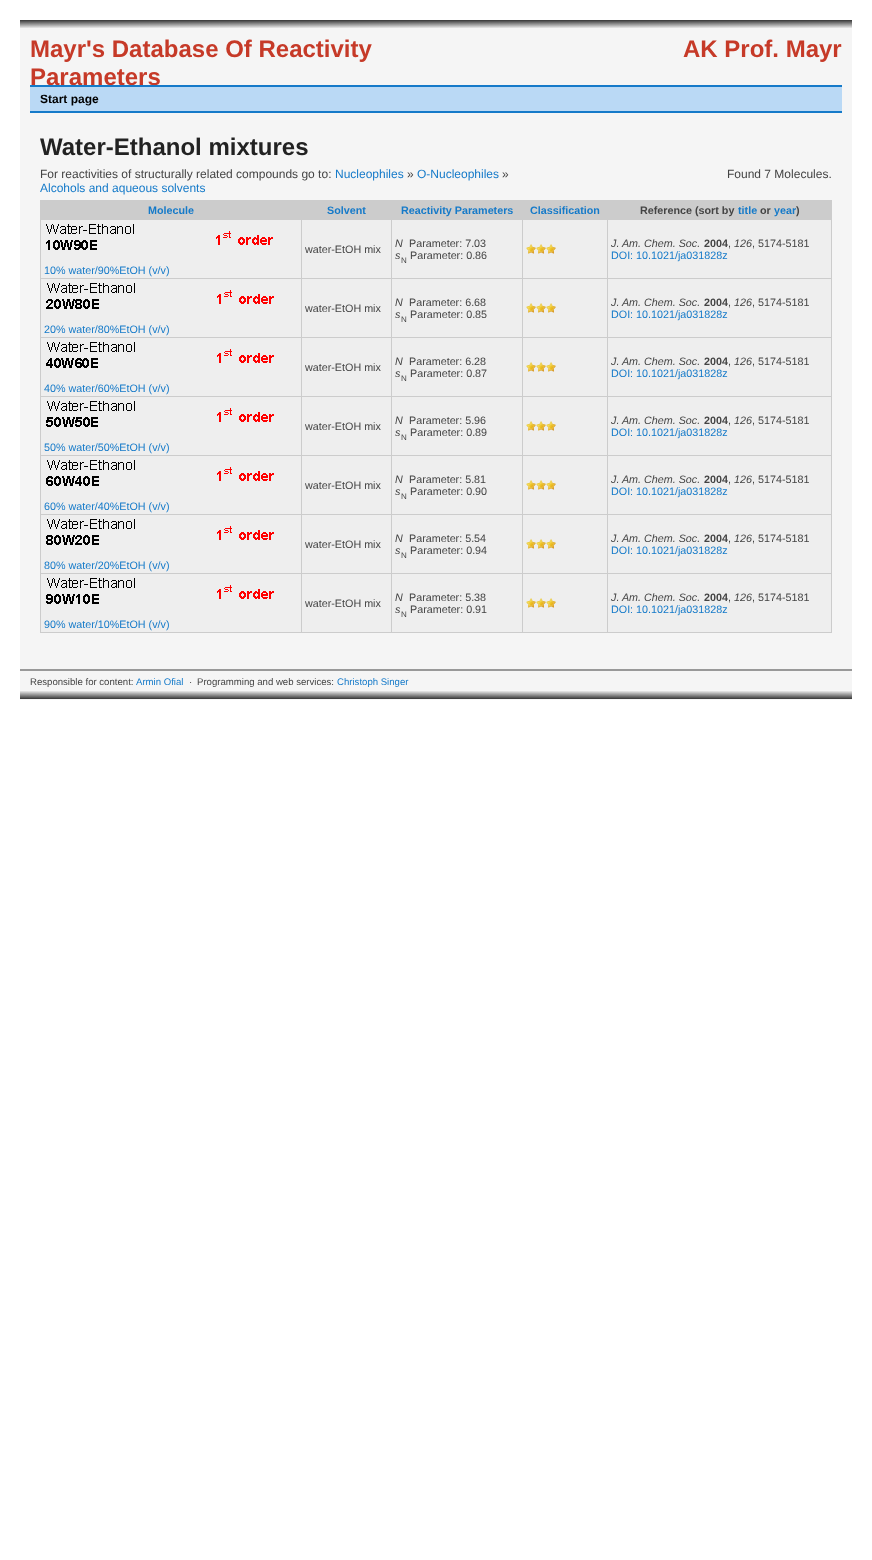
<!DOCTYPE html>
<meta charset="utf-8">
<style>body { margin: 0 } canvas { display: block }</style>
<canvas id="canvas" width="872" height="1560"></canvas>
<img id="img1" src="images/1.png" hidden>
<img id="img2" src="images/2.png" hidden>
<img id="img3" src="images/3.png" hidden>
<img id="img4" src="images/4.png" hidden>
<img id="img5" src="images/5.png" hidden>
<img id="img6" src="images/6.png" hidden>
<img id="img7" src="images/7.png" hidden>
<img id="img8" src="images/8.png" hidden>
<img id="img9" src="images/9.png" hidden>
<img id="img10" src="images/10.png" hidden>
<img id="img11" src="images/11.png" hidden>
<script>
window.onload = function () {
    const canvas = document.getElementById('canvas');
    const context = canvas.getContext('2d');
    context.miterLimit = 4;
    context.fontKerning = 'normal';

    context.fillStyle = 'rgb(255, 255, 255)';
    context.fillRect(0, 0, 872, 1560);
    context.fillStyle = 'rgb(245, 245, 245)';
    context.fillRect(20, 28, 832, 672);
    context.drawImage(document.getElementById('img1'), 20, 20, 832, 8);
    context.fillStyle = 'rgb(186, 217, 245)';
    context.fillRect(30, 87, 812, 24);
    context.fillStyle = 'rgb(21, 122, 201)';
    context.fillRect(30, 111, 812, 2);
    context.fillStyle = 'rgb(204, 204, 204)';
    context.fillRect(40, 200, 792, 1);
    context.fillRect(831, 200, 1, 433);
    context.fillRect(40, 632, 792, 1);
    context.fillRect(40, 200, 1, 433);
    context.fillRect(41, 201, 790, 19);
    context.fillStyle = 'rgb(238, 238, 238)';
    context.fillRect(302, 220, 89, 58);
    context.fillRect(392, 220, 130, 58);
    context.fillRect(523, 220, 84, 58);
    context.drawImage(document.getElementById('img2'), 526, 244, 10, 10);
    context.drawImage(document.getElementById('img3'), 536, 244, 10, 10);
    context.drawImage(document.getElementById('img3'), 546, 244, 10, 10);
    context.fillRect(608, 220, 223, 58);
    context.fillRect(41, 220, 260, 58);
    context.drawImage(document.getElementById('img4'), 46, 224, 227, 26);
    context.fillStyle = 'rgb(204, 204, 204)';
    context.fillRect(40, 278, 792, 1);
    context.fillStyle = 'rgb(238, 238, 238)';
    context.fillRect(302, 279, 89, 58);
    context.fillRect(392, 279, 130, 58);
    context.fillRect(523, 279, 84, 58);
    context.drawImage(document.getElementById('img2'), 526, 303, 10, 10);
    context.drawImage(document.getElementById('img3'), 536, 303, 10, 10);
    context.drawImage(document.getElementById('img3'), 546, 303, 10, 10);
    context.fillRect(608, 279, 223, 58);
    context.fillRect(41, 279, 260, 58);
    context.drawImage(document.getElementById('img5'), 46, 283, 228, 26);
    context.fillStyle = 'rgb(204, 204, 204)';
    context.fillRect(40, 337, 792, 1);
    context.fillStyle = 'rgb(238, 238, 238)';
    context.fillRect(302, 338, 89, 58);
    context.fillRect(392, 338, 130, 58);
    context.fillRect(523, 338, 84, 58);
    context.drawImage(document.getElementById('img2'), 526, 362, 10, 10);
    context.drawImage(document.getElementById('img3'), 536, 362, 10, 10);
    context.drawImage(document.getElementById('img3'), 546, 362, 10, 10);
    context.fillRect(608, 338, 223, 58);
    context.fillRect(41, 338, 260, 58);
    context.drawImage(document.getElementById('img6'), 46, 342, 228, 26);
    context.fillStyle = 'rgb(204, 204, 204)';
    context.fillRect(40, 396, 792, 1);
    context.fillStyle = 'rgb(238, 238, 238)';
    context.fillRect(302, 397, 89, 58);
    context.fillRect(392, 397, 130, 58);
    context.fillRect(523, 397, 84, 58);
    context.drawImage(document.getElementById('img2'), 526, 421, 10, 10);
    context.drawImage(document.getElementById('img3'), 536, 421, 10, 10);
    context.drawImage(document.getElementById('img3'), 546, 421, 10, 10);
    context.fillRect(608, 397, 223, 58);
    context.fillRect(41, 397, 260, 58);
    context.drawImage(document.getElementById('img7'), 46, 401, 228, 26);
    context.fillStyle = 'rgb(204, 204, 204)';
    context.fillRect(40, 455, 792, 1);
    context.fillStyle = 'rgb(238, 238, 238)';
    context.fillRect(302, 456, 89, 58);
    context.fillRect(392, 456, 130, 58);
    context.fillRect(523, 456, 84, 58);
    context.drawImage(document.getElementById('img2'), 526, 480, 10, 10);
    context.drawImage(document.getElementById('img3'), 536, 480, 10, 10);
    context.drawImage(document.getElementById('img3'), 546, 480, 10, 10);
    context.fillRect(608, 456, 223, 58);
    context.fillRect(41, 456, 260, 58);
    context.drawImage(document.getElementById('img8'), 46, 460, 228, 26);
    context.fillStyle = 'rgb(204, 204, 204)';
    context.fillRect(40, 514, 792, 1);
    context.fillStyle = 'rgb(238, 238, 238)';
    context.fillRect(302, 515, 89, 58);
    context.fillRect(392, 515, 130, 58);
    context.fillRect(523, 515, 84, 58);
    context.drawImage(document.getElementById('img2'), 526, 539, 10, 10);
    context.drawImage(document.getElementById('img3'), 536, 539, 10, 10);
    context.drawImage(document.getElementById('img3'), 546, 539, 10, 10);
    context.fillRect(608, 515, 223, 58);
    context.fillRect(41, 515, 260, 58);
    context.drawImage(document.getElementById('img9'), 46, 519, 228, 26);
    context.fillStyle = 'rgb(204, 204, 204)';
    context.fillRect(40, 573, 792, 1);
    context.fillStyle = 'rgb(238, 238, 238)';
    context.fillRect(302, 574, 89, 58);
    context.fillStyle = 'rgb(204, 204, 204)';
    context.fillRect(301, 219, 1, 414);
    context.fillStyle = 'rgb(238, 238, 238)';
    context.fillRect(392, 574, 130, 58);
    context.fillStyle = 'rgb(204, 204, 204)';
    context.fillRect(391, 219, 1, 414);
    context.fillStyle = 'rgb(238, 238, 238)';
    context.fillRect(523, 574, 84, 58);
    context.fillStyle = 'rgb(204, 204, 204)';
    context.fillRect(522, 219, 1, 414);
    context.drawImage(document.getElementById('img2'), 526, 598, 10, 10);
    context.drawImage(document.getElementById('img3'), 536, 598, 10, 10);
    context.drawImage(document.getElementById('img3'), 546, 598, 10, 10);
    context.fillStyle = 'rgb(238, 238, 238)';
    context.fillRect(608, 574, 223, 58);
    context.fillStyle = 'rgb(204, 204, 204)';
    context.fillRect(607, 219, 1, 414);
    context.fillStyle = 'rgb(238, 238, 238)';
    context.fillRect(41, 574, 260, 58);
    context.drawImage(document.getElementById('img10'), 46, 578, 228, 26);
    context.drawImage(document.getElementById('img11'), 20, 691, 832, 8);
    context.fillStyle = 'rgb(153, 153, 153)';
    context.fillRect(20, 669, 832, 2);
    context.font = 'bold 24px Liberation Sans';
    context.fillStyle = 'rgb(198, 58, 40)';
    context.fillText('Mayr\'s Database Of Reactivity', 30, 57);
    context.fillText('Parameters', 30, 85);
    context.fillText('AK Prof. Mayr', 683, 57);
    context.fillStyle = 'rgb(21, 122, 201)';
    context.fillRect(30, 85, 812, 2);
    context.font = 'bold 12px Liberation Sans';
    context.fillStyle = 'rgb(0, 0, 0)';
    context.fillText('Start page', 40, 103);
    context.font = 'bold 24px Liberation Sans';
    context.fillStyle = 'rgb(34, 34, 34)';
    context.fillText('Water-Ethanol mixtures', 40, 155);
    context.font = '12px Liberation Sans';
    context.fillStyle = 'rgb(68, 68, 68)';
    context.fillText('For reactivities of structurally related compounds go to:', 40, 178);
    context.fillStyle = 'rgb(21, 122, 201)';
    context.fillText('Nucleophiles', 335, 178);
    context.fillStyle = 'rgb(68, 68, 68)';
    context.fillText('»', 407, 178);
    context.fillStyle = 'rgb(21, 122, 201)';
    context.fillText('O-Nucleophiles', 417, 178);
    context.fillStyle = 'rgb(68, 68, 68)';
    context.fillText('»', 502, 178);
    context.fillStyle = 'rgb(21, 122, 201)';
    context.fillText('Alcohols and aqueous solvents', 40, 192);
    context.fillStyle = 'rgb(68, 68, 68)';
    context.fillText('Found 7 Molecules.', 727, 178);
    context.font = 'bold 10.75px Liberation Sans';
    context.fillStyle = 'rgb(21, 122, 201)';
    context.fillText('Molecule', 148, 214);
    context.fillText('Solvent', 327, 214);
    context.fillText('Reactivity Parameters', 401, 214);
    context.fillText('Classification', 530, 214);
    context.fillStyle = 'rgb(68, 68, 68)';
    context.fillText('Reference (sort by', 640, 214);
    context.fillStyle = 'rgb(21, 122, 201)';
    context.fillText('title', 738, 214);
    context.fillStyle = 'rgb(68, 68, 68)';
    context.fillText('or', 760, 214);
    context.fillStyle = 'rgb(21, 122, 201)';
    context.fillText('year', 774, 214);
    context.fillStyle = 'rgb(68, 68, 68)';
    context.fillText(')', 796, 214);
    context.font = '10.75px Liberation Sans';
    context.fillText('water-EtOH mix', 305, 253);
    context.font = 'italic 10.75px Liberation Sans';
    context.fillText('N', 395, 247);
    context.font = '10.75px Liberation Sans';
    context.fillText('Parameter: 7.03', 409, 247);
    context.font = 'italic 10.75px Liberation Sans';
    context.fillText('s', 395, 259);
    context.font = '8px Liberation Sans';
    context.fillText('N', 401, 263);
    context.font = '10.75px Liberation Sans';
    context.fillText('Parameter: 0.86', 410, 259);
    context.font = 'italic 10.75px Liberation Sans';
    context.fillText('J. Am. Chem. Soc.', 611, 247);
    context.font = 'bold 10.75px Liberation Sans';
    context.fillText('2004', 704, 247);
    context.font = '10.75px Liberation Sans';
    context.fillText(',', 728, 247);
    context.font = 'italic 10.75px Liberation Sans';
    context.fillText('126', 734, 247);
    context.font = '10.75px Liberation Sans';
    context.fillText(', 5174-5181', 752, 247);
    context.fillStyle = 'rgb(21, 122, 201)';
    context.fillText('DOI: 10.1021/ja031828z', 611, 259);
    context.fillText('10% water/90%EtOH (v/v)', 44, 274);
    context.fillStyle = 'rgb(68, 68, 68)';
    context.fillText('water-EtOH mix', 305, 312);
    context.font = 'italic 10.75px Liberation Sans';
    context.fillText('N', 395, 306);
    context.font = '10.75px Liberation Sans';
    context.fillText('Parameter: 6.68', 409, 306);
    context.font = 'italic 10.75px Liberation Sans';
    context.fillText('s', 395, 318);
    context.font = '8px Liberation Sans';
    context.fillText('N', 401, 322);
    context.font = '10.75px Liberation Sans';
    context.fillText('Parameter: 0.85', 410, 318);
    context.font = 'italic 10.75px Liberation Sans';
    context.fillText('J. Am. Chem. Soc.', 611, 306);
    context.font = 'bold 10.75px Liberation Sans';
    context.fillText('2004', 704, 306);
    context.font = '10.75px Liberation Sans';
    context.fillText(',', 728, 306);
    context.font = 'italic 10.75px Liberation Sans';
    context.fillText('126', 734, 306);
    context.font = '10.75px Liberation Sans';
    context.fillText(', 5174-5181', 752, 306);
    context.fillStyle = 'rgb(21, 122, 201)';
    context.fillText('DOI: 10.1021/ja031828z', 611, 318);
    context.fillText('20% water/80%EtOH (v/v)', 44, 333);
    context.fillStyle = 'rgb(68, 68, 68)';
    context.fillText('water-EtOH mix', 305, 371);
    context.font = 'italic 10.75px Liberation Sans';
    context.fillText('N', 395, 365);
    context.font = '10.75px Liberation Sans';
    context.fillText('Parameter: 6.28', 409, 365);
    context.font = 'italic 10.75px Liberation Sans';
    context.fillText('s', 395, 377);
    context.font = '8px Liberation Sans';
    context.fillText('N', 401, 381);
    context.font = '10.75px Liberation Sans';
    context.fillText('Parameter: 0.87', 410, 377);
    context.font = 'italic 10.75px Liberation Sans';
    context.fillText('J. Am. Chem. Soc.', 611, 365);
    context.font = 'bold 10.75px Liberation Sans';
    context.fillText('2004', 704, 365);
    context.font = '10.75px Liberation Sans';
    context.fillText(',', 728, 365);
    context.font = 'italic 10.75px Liberation Sans';
    context.fillText('126', 734, 365);
    context.font = '10.75px Liberation Sans';
    context.fillText(', 5174-5181', 752, 365);
    context.fillStyle = 'rgb(21, 122, 201)';
    context.fillText('DOI: 10.1021/ja031828z', 611, 377);
    context.fillText('40% water/60%EtOH (v/v)', 44, 392);
    context.fillStyle = 'rgb(68, 68, 68)';
    context.fillText('water-EtOH mix', 305, 430);
    context.font = 'italic 10.75px Liberation Sans';
    context.fillText('N', 395, 424);
    context.font = '10.75px Liberation Sans';
    context.fillText('Parameter: 5.96', 409, 424);
    context.font = 'italic 10.75px Liberation Sans';
    context.fillText('s', 395, 436);
    context.font = '8px Liberation Sans';
    context.fillText('N', 401, 440);
    context.font = '10.75px Liberation Sans';
    context.fillText('Parameter: 0.89', 410, 436);
    context.font = 'italic 10.75px Liberation Sans';
    context.fillText('J. Am. Chem. Soc.', 611, 424);
    context.font = 'bold 10.75px Liberation Sans';
    context.fillText('2004', 704, 424);
    context.font = '10.75px Liberation Sans';
    context.fillText(',', 728, 424);
    context.font = 'italic 10.75px Liberation Sans';
    context.fillText('126', 734, 424);
    context.font = '10.75px Liberation Sans';
    context.fillText(', 5174-5181', 752, 424);
    context.fillStyle = 'rgb(21, 122, 201)';
    context.fillText('DOI: 10.1021/ja031828z', 611, 436);
    context.fillText('50% water/50%EtOH (v/v)', 44, 451);
    context.fillStyle = 'rgb(68, 68, 68)';
    context.fillText('water-EtOH mix', 305, 489);
    context.font = 'italic 10.75px Liberation Sans';
    context.fillText('N', 395, 483);
    context.font = '10.75px Liberation Sans';
    context.fillText('Parameter: 5.81', 409, 483);
    context.font = 'italic 10.75px Liberation Sans';
    context.fillText('s', 395, 495);
    context.font = '8px Liberation Sans';
    context.fillText('N', 401, 499);
    context.font = '10.75px Liberation Sans';
    context.fillText('Parameter: 0.90', 410, 495);
    context.font = 'italic 10.75px Liberation Sans';
    context.fillText('J. Am. Chem. Soc.', 611, 483);
    context.font = 'bold 10.75px Liberation Sans';
    context.fillText('2004', 704, 483);
    context.font = '10.75px Liberation Sans';
    context.fillText(',', 728, 483);
    context.font = 'italic 10.75px Liberation Sans';
    context.fillText('126', 734, 483);
    context.font = '10.75px Liberation Sans';
    context.fillText(', 5174-5181', 752, 483);
    context.fillStyle = 'rgb(21, 122, 201)';
    context.fillText('DOI: 10.1021/ja031828z', 611, 495);
    context.fillText('60% water/40%EtOH (v/v)', 44, 510);
    context.fillStyle = 'rgb(68, 68, 68)';
    context.fillText('water-EtOH mix', 305, 548);
    context.font = 'italic 10.75px Liberation Sans';
    context.fillText('N', 395, 542);
    context.font = '10.75px Liberation Sans';
    context.fillText('Parameter: 5.54', 409, 542);
    context.font = 'italic 10.75px Liberation Sans';
    context.fillText('s', 395, 554);
    context.font = '8px Liberation Sans';
    context.fillText('N', 401, 558);
    context.font = '10.75px Liberation Sans';
    context.fillText('Parameter: 0.94', 410, 554);
    context.font = 'italic 10.75px Liberation Sans';
    context.fillText('J. Am. Chem. Soc.', 611, 542);
    context.font = 'bold 10.75px Liberation Sans';
    context.fillText('2004', 704, 542);
    context.font = '10.75px Liberation Sans';
    context.fillText(',', 728, 542);
    context.font = 'italic 10.75px Liberation Sans';
    context.fillText('126', 734, 542);
    context.font = '10.75px Liberation Sans';
    context.fillText(', 5174-5181', 752, 542);
    context.fillStyle = 'rgb(21, 122, 201)';
    context.fillText('DOI: 10.1021/ja031828z', 611, 554);
    context.fillText('80% water/20%EtOH (v/v)', 44, 569);
    context.fillStyle = 'rgb(68, 68, 68)';
    context.fillText('water-EtOH mix', 305, 607);
    context.font = 'italic 10.75px Liberation Sans';
    context.fillText('N', 395, 601);
    context.font = '10.75px Liberation Sans';
    context.fillText('Parameter: 5.38', 409, 601);
    context.font = 'italic 10.75px Liberation Sans';
    context.fillText('s', 395, 613);
    context.font = '8px Liberation Sans';
    context.fillText('N', 401, 617);
    context.font = '10.75px Liberation Sans';
    context.fillText('Parameter: 0.91', 410, 613);
    context.font = 'italic 10.75px Liberation Sans';
    context.fillText('J. Am. Chem. Soc.', 611, 601);
    context.font = 'bold 10.75px Liberation Sans';
    context.fillText('2004', 704, 601);
    context.font = '10.75px Liberation Sans';
    context.fillText(',', 728, 601);
    context.font = 'italic 10.75px Liberation Sans';
    context.fillText('126', 734, 601);
    context.font = '10.75px Liberation Sans';
    context.fillText(', 5174-5181', 752, 601);
    context.fillStyle = 'rgb(21, 122, 201)';
    context.fillText('DOI: 10.1021/ja031828z', 611, 613);
    context.fillText('90% water/10%EtOH (v/v)', 44, 628);
    context.font = '9.6px Liberation Sans';
    context.fillStyle = 'rgb(68, 68, 68)';
    context.fillText('Responsible for content:', 30, 685);
    context.fillStyle = 'rgb(21, 122, 201)';
    context.fillText('Armin Ofial', 136, 685);
    context.fillStyle = 'rgb(68, 68, 68)';
    context.fillText('·', 189, 685);
    context.fillText('Programming and web services:', 197, 685);
    context.fillStyle = 'rgb(21, 122, 201)';
    context.fillText('Christoph Singer', 337, 685);
};
</script>
